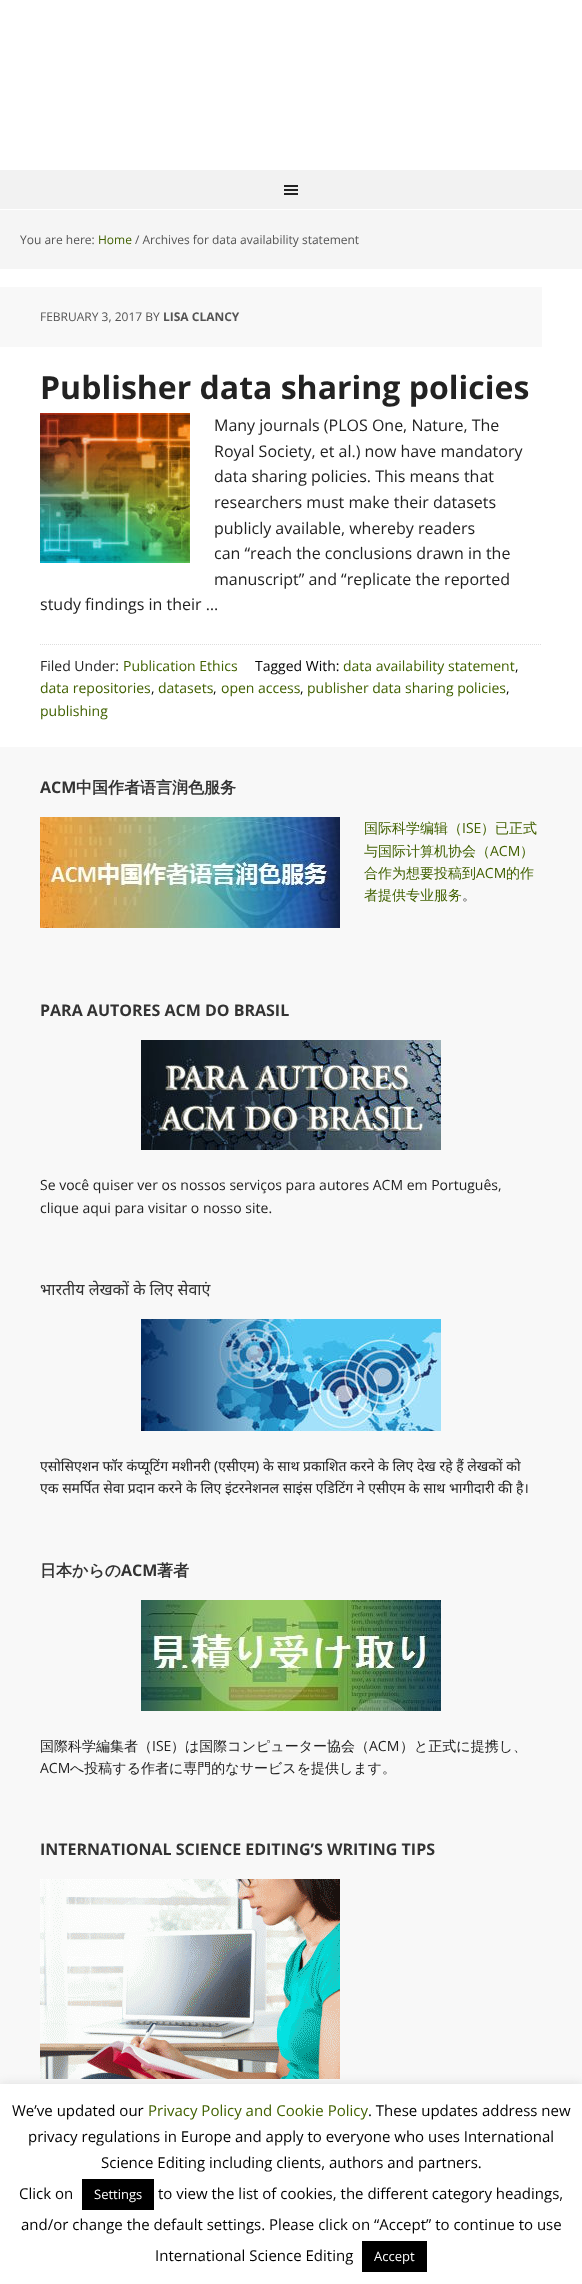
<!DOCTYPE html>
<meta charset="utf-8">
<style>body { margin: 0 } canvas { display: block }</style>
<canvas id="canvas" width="582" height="2284"></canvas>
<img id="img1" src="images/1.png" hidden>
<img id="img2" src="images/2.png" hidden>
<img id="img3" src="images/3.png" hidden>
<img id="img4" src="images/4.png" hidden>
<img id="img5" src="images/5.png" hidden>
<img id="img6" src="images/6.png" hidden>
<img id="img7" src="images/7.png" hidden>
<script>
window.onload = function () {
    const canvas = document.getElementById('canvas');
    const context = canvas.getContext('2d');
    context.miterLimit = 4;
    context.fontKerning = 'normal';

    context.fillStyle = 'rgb(255, 255, 255)';
    context.fillRect(0, 0, 582, 2284);
    context.fillStyle = 'rgb(242, 242, 242)';
    context.fillRect(0, 170, 582, 39);
    context.drawImage(document.getElementById('img1'), 284, 185, 14, 10);
    context.fillStyle = 'rgb(245, 245, 245)';
    context.fillRect(0, 210, 582, 59);
    context.fillStyle = 'rgb(248, 248, 248)';
    context.fillRect(0, 287, 542, 60);
    context.drawImage(document.getElementById('img2'), 40, 413, 150, 150);
    context.beginPath();
    context.moveTo(40, 644.5);
    context.lineTo(542, 644.5);
    context.strokeStyle = 'rgb(221, 221, 221)';
    context.setLineDash([1, 1]);
    context.stroke();
    context.fillRect(0, 747, 582, 1337);
    context.drawImage(document.getElementById('img3'), 40, 817, 300, 111);
    context.drawImage(document.getElementById('img4'), 141, 1040, 300, 110);
    context.drawImage(document.getElementById('img5'), 141, 1319, 300, 112);
    context.drawImage(document.getElementById('img6'), 141, 1600, 300, 111);
    context.drawImage(document.getElementById('img7'), 40, 1879, 300, 200);
    context.fillStyle = 'rgba(172, 171, 171, 0.3)';
    context.filter = 'blur(5px)';
    context.beginPath();
    context.rect(0, 2083, 582, 200);
    context.fill();
    context.filter = 'none';
    context.fillStyle = 'rgb(255, 255, 255)';
    context.fillRect(0, 2084, 582, 200);
    context.fillStyle = 'rgb(0, 0, 0)';
    context.fillRect(82, 2179, 72, 31);
    context.fillRect(362, 2241, 65, 31);
    context.font = '12px Open Sans';
    context.fillStyle = 'rgb(84, 84, 84)';
    context.fillText('You are here:', 20, 244);
    context.fillStyle = 'rgb(65, 97, 0)';
    context.fillText('Home', 98, 244);
    context.fillStyle = 'rgb(84, 84, 84)';
    context.fillText('/ Archives for data availability statement', 135, 244);
    context.fillText('FEBRUARY 3, 2017 BY', 40, 321);
    context.font = 'bold 12px Open Sans';
    context.fillText('LISA CLANCY', 163, 321);
    context.font = 'bold 32px Open Sans';
    context.fillStyle = 'rgb(34, 34, 34)';
    context.fillText('Publisher data sharing policies', 40, 399);
    context.font = '16px Open Sans';
    context.fillText('Many journals (PLOS One, Nature, The', 214, 431);
    context.fillText('Royal Society, et al.) now have mandatory', 214, 457);
    context.fillText('data sharing policies. This means that', 214, 482);
    context.fillText('researchers must make their datasets', 214, 508);
    context.fillText('publicly available, whereby readers', 214, 534);
    context.fillText('can “reach the conclusions drawn in the', 214, 559);
    context.fillText('manuscript” and “replicate the reported', 214, 585);
    context.fillText('study findings in their …', 40, 610);
    context.font = '14px Open Sans';
    context.fillText('Filed Under:', 40, 671);
    context.fillStyle = 'rgb(65, 97, 0)';
    context.fillText('Publication Ethics', 123, 671);
    context.fillStyle = 'rgb(0, 0, 0)';
    context.fillText('Tagged With:', 255, 671);
    context.fillStyle = 'rgb(65, 97, 0)';
    context.fillText('data availability statement', 343, 671);
    context.fillStyle = 'rgb(0, 0, 0)';
    context.fillText(',', 515, 671);
    context.fillStyle = 'rgb(65, 97, 0)';
    context.fillText('data repositories', 40, 693);
    context.fillStyle = 'rgb(0, 0, 0)';
    context.fillText(',', 151, 693);
    context.fillStyle = 'rgb(65, 97, 0)';
    context.fillText('datasets', 158, 693);
    context.fillStyle = 'rgb(0, 0, 0)';
    context.fillText(',', 213, 693);
    context.fillStyle = 'rgb(65, 97, 0)';
    context.fillText('open access', 221, 693);
    context.fillStyle = 'rgb(0, 0, 0)';
    context.fillText(',', 300, 693);
    context.fillStyle = 'rgb(65, 97, 0)';
    context.fillText('publisher data sharing policies', 307, 693);
    context.fillStyle = 'rgb(0, 0, 0)';
    context.fillText(',', 506, 693);
    context.fillStyle = 'rgb(65, 97, 0)';
    context.fillText('publishing', 40, 716);
    context.font = 'bold 16px Open Sans';
    context.fillStyle = 'rgb(51, 51, 51)';
    context.fillText('ACM', 40, 793);
    context.font = 'bold 16px WenQuanYi Zen Hei';
    context.fillText('中国作者语言润色服务', 76, 793);
    context.font = '500 14px WenQuanYi Zen Hei';
    context.fillStyle = 'rgb(65, 97, 0)';
    context.fillText('国际科学编辑（', 364, 833);
    context.font = '14px Open Sans';
    context.fillText('ISE', 462, 833);
    context.font = '500 14px WenQuanYi Zen Hei';
    context.fillText('）已正式', 481, 833);
    context.fillText('与国际计算机协会（', 364, 856);
    context.font = '14px Open Sans';
    context.fillText('ACM', 490, 856);
    context.font = '500 14px WenQuanYi Zen Hei';
    context.fillText('）', 520, 856);
    context.fillText('合作为想要投稿到', 364, 878);
    context.font = '14px Open Sans';
    context.fillText('ACM', 476, 878);
    context.font = '500 14px WenQuanYi Zen Hei';
    context.fillText('的作', 506, 878);
    context.fillText('者提供专业服务', 364, 900);
    context.fillStyle = 'rgb(34, 34, 34)';
    context.fillText('。', 462, 900);
    context.font = 'bold 16px Open Sans';
    context.fillStyle = 'rgb(51, 51, 51)';
    context.fillText('PARA AUTORES ACM DO BRASIL', 40, 1016);
    context.font = '14px Open Sans';
    context.fillStyle = 'rgb(34, 34, 34)';
    context.fillText('Se você quiser ver os nossos serviços para autores ACM em Português,', 40, 1190);
    context.fillText('clique aqui para visitar o nosso site.', 40, 1213);
    context.font = '16px Noto Sans';
    context.fillStyle = 'rgb(51, 51, 51)';
    context.fillText('भारतीय लेखकों के लिए सेवाएं', 40, 1295);
    context.font = '14px Noto Sans';
    context.fillStyle = 'rgb(34, 34, 34)';
    context.fillText('एसोसिएशन फॉर कंप्यूटिंग मशीनरी (एसीएम) के साथ प्रकाशित करने के लिए देख रहे हैं लेखकों को', 40, 1471);
    context.fillText('एक समर्पित सेवा प्रदान करने के लिए इंटरनेशनल साइंस एडिटिंग ने एसीएम के साथ भागीदारी की है।', 40, 1493);
    context.font = 'bold 16px WenQuanYi Zen Hei';
    context.fillStyle = 'rgb(51, 51, 51)';
    context.fillText('日本からの', 40, 1576);
    context.font = 'bold 16px Open Sans';
    context.fillText('ACM', 121, 1576);
    context.font = 'bold 16px WenQuanYi Zen Hei';
    context.fillText('著者', 157, 1576);
    context.font = '500 14px WenQuanYi Zen Hei';
    context.fillStyle = 'rgb(34, 34, 34)';
    context.fillText('国際科学編集者（', 40, 1751);
    context.font = '14px Open Sans';
    context.fillText('ISE', 152, 1751);
    context.font = '500 14px WenQuanYi Zen Hei';
    context.fillText('）は国際コンピューター協会（', 171, 1751);
    context.font = '14px Open Sans';
    context.fillText('ACM', 369, 1751);
    context.font = '500 14px WenQuanYi Zen Hei';
    context.fillText('）と正式に提携し、', 400, 1751);
    context.font = '14px Open Sans';
    context.fillText('ACM', 40, 1773);
    context.font = '500 14px WenQuanYi Zen Hei';
    context.fillText('へ投稿する作者に専門的なサービスを提供します。', 70, 1773);
    context.font = 'bold 16px Open Sans';
    context.fillStyle = 'rgb(51, 51, 51)';
    context.fillText('INTERNATIONAL SCIENCE EDITING’S WRITING TIPS', 40, 1855);
    context.font = '15px Open Sans';
    context.fillStyle = 'rgb(0, 0, 0)';
    context.fillText('We’ve updated our', 12, 2116);
    context.fillStyle = 'rgb(65, 97, 0)';
    context.fillText('Privacy Policy and Cookie Policy', 148, 2116);
    context.fillStyle = 'rgb(0, 0, 0)';
    context.fillText('. These updates address new', 368, 2116);
    context.fillText('privacy regulations in Europe and apply to everyone who uses International', 28, 2142);
    context.fillText('Science Editing including clients, authors and partners.', 101, 2168);
    context.fillText('Click on', 19, 2199);
    context.font = '13px Open Sans';
    context.fillStyle = 'rgb(255, 255, 255)';
    context.fillText('Settings', 94, 2199);
    context.font = '15px Open Sans';
    context.fillStyle = 'rgb(0, 0, 0)';
    context.fillText('to view the list of cookies, the different category headings,', 158, 2199);
    context.fillText('and/or change the default settings. Please click on “Accept” to continue to use', 21, 2230);
    context.fillText('International Science Editing', 155, 2261);
    context.font = '13px Open Sans';
    context.fillStyle = 'rgb(255, 255, 255)';
    context.fillText('Accept', 374, 2261);
};
</script>
